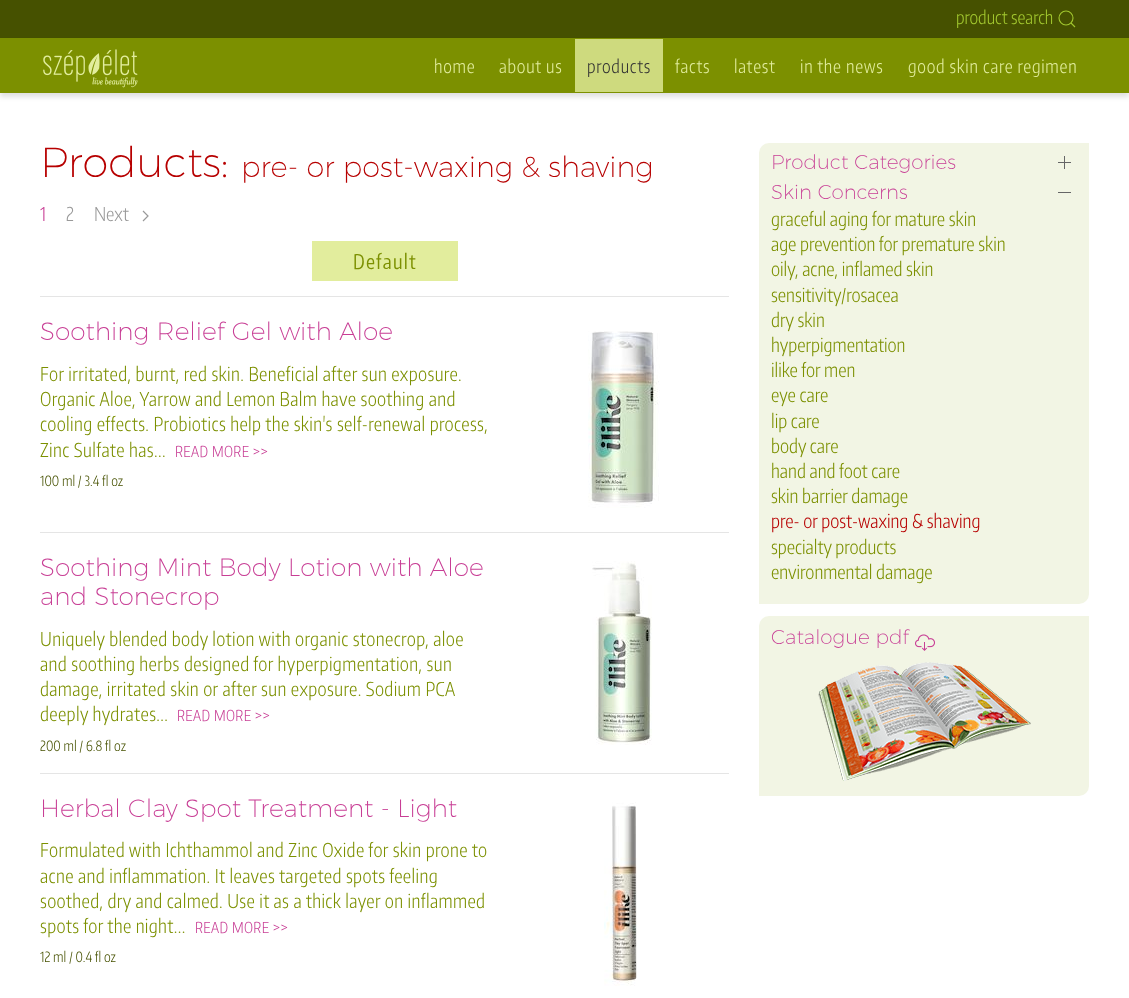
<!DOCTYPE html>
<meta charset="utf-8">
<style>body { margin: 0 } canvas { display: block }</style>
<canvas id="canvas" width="1129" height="998"></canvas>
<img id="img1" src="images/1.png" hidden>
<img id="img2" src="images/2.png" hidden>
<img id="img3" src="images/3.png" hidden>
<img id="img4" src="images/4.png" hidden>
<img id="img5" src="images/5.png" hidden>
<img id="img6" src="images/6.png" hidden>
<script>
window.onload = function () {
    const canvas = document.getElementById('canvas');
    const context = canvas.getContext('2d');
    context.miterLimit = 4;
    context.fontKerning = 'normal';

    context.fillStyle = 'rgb(255, 255, 255)';
    context.fillRect(0, 0, 1129, 998);
    context.fillStyle = 'rgb(70, 81, 0)';
    context.fillRect(0, 0, 1129, 38);
    context.beginPath();
    context.arc(1066, 18, 7, 0, 2 * Math.PI);
    context.strokeStyle = 'rgb(162, 199, 46)';
    context.lineWidth = 1.1;
    context.stroke();
    context.beginPath();
    context.moveTo(1071, 23);
    context.lineTo(1075, 27);
    context.closePath();
    context.stroke();
    context.fillStyle = 'rgba(0, 0, 0, 0.12)';
    context.filter = 'blur(2.5px)';
    context.beginPath();
    context.rect(0, 42, 1129, 55);
    context.fill();
    context.filter = 'none';
    context.fillStyle = 'rgb(124, 144, 0)';
    context.fillRect(0, 38, 1129, 55);
    context.drawImage(document.getElementById('img1'), 43, 49, 95, 39);
    context.fillStyle = 'rgb(206, 218, 126)';
    context.fillRect(575, 39, 88, 53);
    context.beginPath();
    context.moveTo(143, 211);
    context.lineTo(148, 216);
    context.lineTo(143, 221);
    context.strokeStyle = 'rgb(153, 153, 153)';
    context.lineWidth = 1.2;
    context.stroke();
    context.fillStyle = 'rgb(226, 237, 157)';
    context.fillRect(312, 241, 146, 40);
    context.fillStyle = 'rgb(229, 229, 229)';
    context.fillRect(40, 296, 689, 1);
    context.drawImage(document.getElementById('img2'), 588, 331, 72, 177);
    context.fillRect(40, 532, 689, 1);
    context.drawImage(document.getElementById('img3'), 592, 561, 60, 184);
    context.fillRect(40, 773, 689, 1);
    context.drawImage(document.getElementById('img4'), 604, 802, 33, 184);
    context.fillStyle = 'rgb(242, 245, 228)';
    context.beginPath();
    context.roundRect(759, 143, 330, 461, [10, 0, 10, 0]);
    context.fill();
    context.fillStyle = 'rgb(102, 102, 102)';
    context.fillRect(1058, 162, 13, 1);
    context.fillRect(1064, 156, 1, 13);
    context.fillRect(1058, 192, 13, 1);
    context.fillStyle = 'rgb(242, 245, 228)';
    context.beginPath();
    context.roundRect(759, 616, 330, 180, [10, 0, 10, 0]);
    context.fill();
    context.drawImage(document.getElementById('img5'), 915, 634, 20, 17);
    context.drawImage(document.getElementById('img6'), 818, 662, 213, 119);
    context.font = '300 18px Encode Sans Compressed';
    context.fillStyle = 'rgb(162, 199, 46)';
    context.fillText('product search', 956, 24);
    context.letterSpacing = '0.75px';
    context.fillStyle = 'rgb(226, 237, 157)';
    context.fillText('home', 434, 73);
    context.fillText('about us', 499, 73);
    context.fillStyle = 'rgb(51, 51, 51)';
    context.fillText('products', 587, 73);
    context.fillStyle = 'rgb(226, 237, 157)';
    context.fillText('facts', 675, 73);
    context.fillText('latest', 734, 73);
    context.fillText('in the news', 800, 73);
    context.fillText('good skin care regimen', 908, 73);
    context.letterSpacing = '0px';
    context.font = '200 42px Montserrat';
    context.fillStyle = 'rgb(183, 0, 0)';
    context.fillText('Products:', 40, 177);
    context.font = '200 29px Montserrat';
    context.fillText('pre- or post-waxing & shaving', 241, 177);
    context.font = '300 18.9px Encode Sans Compressed';
    context.fillStyle = 'rgb(200, 62, 149)';
    context.fillText('1', 40, 221);
    context.fillStyle = 'rgb(153, 153, 153)';
    context.fillText('2', 66, 221);
    context.fillText('Next', 94, 221);
    context.letterSpacing = '1.25px';
    context.font = '20px Encode Sans Compressed';
    context.fillStyle = 'rgb(124, 144, 0)';
    context.fillText('Default', 353, 269);
    context.letterSpacing = '0px';
    context.font = '200 25px Montserrat';
    context.fillStyle = 'rgb(200, 62, 149)';
    context.fillText('Soothing Relief Gel with Aloe', 40, 340);
    context.letterSpacing = '0.38px';
    context.font = '300 18.9px Encode Sans Compressed';
    context.fillStyle = 'rgb(124, 144, 0)';
    context.fillText('For irritated, burnt, red skin. Beneficial after sun exposure.', 40, 381);
    context.fillText('Organic Aloe, Yarrow and Lemon Balm have soothing and', 40, 406);
    context.fillText('cooling effects. Probiotics help the skin\'s self-renewal process,', 40, 431);
    context.fillText('Zinc Sulfate has...', 40, 457);
    context.font = '300 15px Encode Sans Compressed';
    context.fillStyle = 'rgb(200, 62, 149)';
    context.fillText('READ MORE >>', 175, 457);
    context.letterSpacing = '0px';
    context.font = '300 14px Encode Sans Compressed';
    context.fillStyle = 'rgb(70, 81, 0)';
    context.fillText('100 ml / 3.4 fl oz', 40, 486);
    context.font = '200 25px Montserrat';
    context.fillStyle = 'rgb(200, 62, 149)';
    context.fillText('Soothing Mint Body Lotion with Aloe', 40, 576);
    context.fillText('and Stonecrop', 40, 605);
    context.letterSpacing = '0.38px';
    context.font = '300 18.9px Encode Sans Compressed';
    context.fillStyle = 'rgb(124, 144, 0)';
    context.fillText('Uniquely blended body lotion with organic stonecrop, aloe', 40, 646);
    context.fillText('and soothing herbs designed for hyperpigmentation, sun', 40, 671);
    context.fillText('damage, irritated skin or after sun exposure. Sodium PCA', 40, 696);
    context.fillText('deeply hydrates...', 40, 721);
    context.font = '300 15px Encode Sans Compressed';
    context.fillStyle = 'rgb(200, 62, 149)';
    context.fillText('READ MORE >>', 177, 721);
    context.letterSpacing = '0px';
    context.font = '300 14px Encode Sans Compressed';
    context.fillStyle = 'rgb(70, 81, 0)';
    context.fillText('200 ml / 6.8 fl oz', 40, 751);
    context.font = '200 25px Montserrat';
    context.fillStyle = 'rgb(200, 62, 149)';
    context.fillText('Herbal Clay Spot Treatment - Light', 40, 817);
    context.letterSpacing = '0.38px';
    context.font = '300 18.9px Encode Sans Compressed';
    context.fillStyle = 'rgb(124, 144, 0)';
    context.fillText('Formulated with Ichthammol and Zinc Oxide for skin prone to', 40, 857);
    context.fillText('acne and inflammation. It leaves targeted spots feeling', 40, 883);
    context.fillText('soothed, dry and calmed. Use it as a thick layer on inflammed', 40, 908);
    context.fillText('spots for the night...', 40, 933);
    context.font = '300 15px Encode Sans Compressed';
    context.fillStyle = 'rgb(200, 62, 149)';
    context.fillText('READ MORE >>', 195, 933);
    context.letterSpacing = '0px';
    context.font = '300 14px Encode Sans Compressed';
    context.fillStyle = 'rgb(70, 81, 0)';
    context.fillText('12 ml / 0.4 fl oz', 40, 962);
    context.font = '200 20px Montserrat';
    context.fillStyle = 'rgb(200, 62, 149)';
    context.fillText('Product Categories', 771, 169);
    context.fillText('Skin Concerns', 771, 199);
    context.font = '300 18.9px Encode Sans Compressed';
    context.fillStyle = 'rgb(124, 144, 0)';
    context.fillText('graceful aging for mature skin', 771, 226);
    context.fillText('age prevention for premature skin', 771, 251);
    context.fillText('oily, acne, inflamed skin', 771, 276);
    context.fillText('sensitivity/rosacea', 771, 302);
    context.fillText('dry skin', 771, 327);
    context.fillText('hyperpigmentation', 771, 352);
    context.fillText('ilike for men', 771, 377);
    context.fillText('eye care', 771, 402);
    context.fillText('lip care', 771, 428);
    context.fillText('body care', 771, 453);
    context.fillText('hand and foot care', 771, 478);
    context.fillText('skin barrier damage', 771, 503);
    context.fillStyle = 'rgb(183, 0, 0)';
    context.fillText('pre- or post-waxing & shaving', 771, 528);
    context.fillStyle = 'rgb(124, 144, 0)';
    context.fillText('specialty products', 771, 554);
    context.fillText('environmental damage', 771, 579);
    context.font = '200 20px Montserrat';
    context.fillStyle = 'rgb(200, 62, 149)';
    context.fillText('Catalogue pdf', 771, 644);
};
</script>
